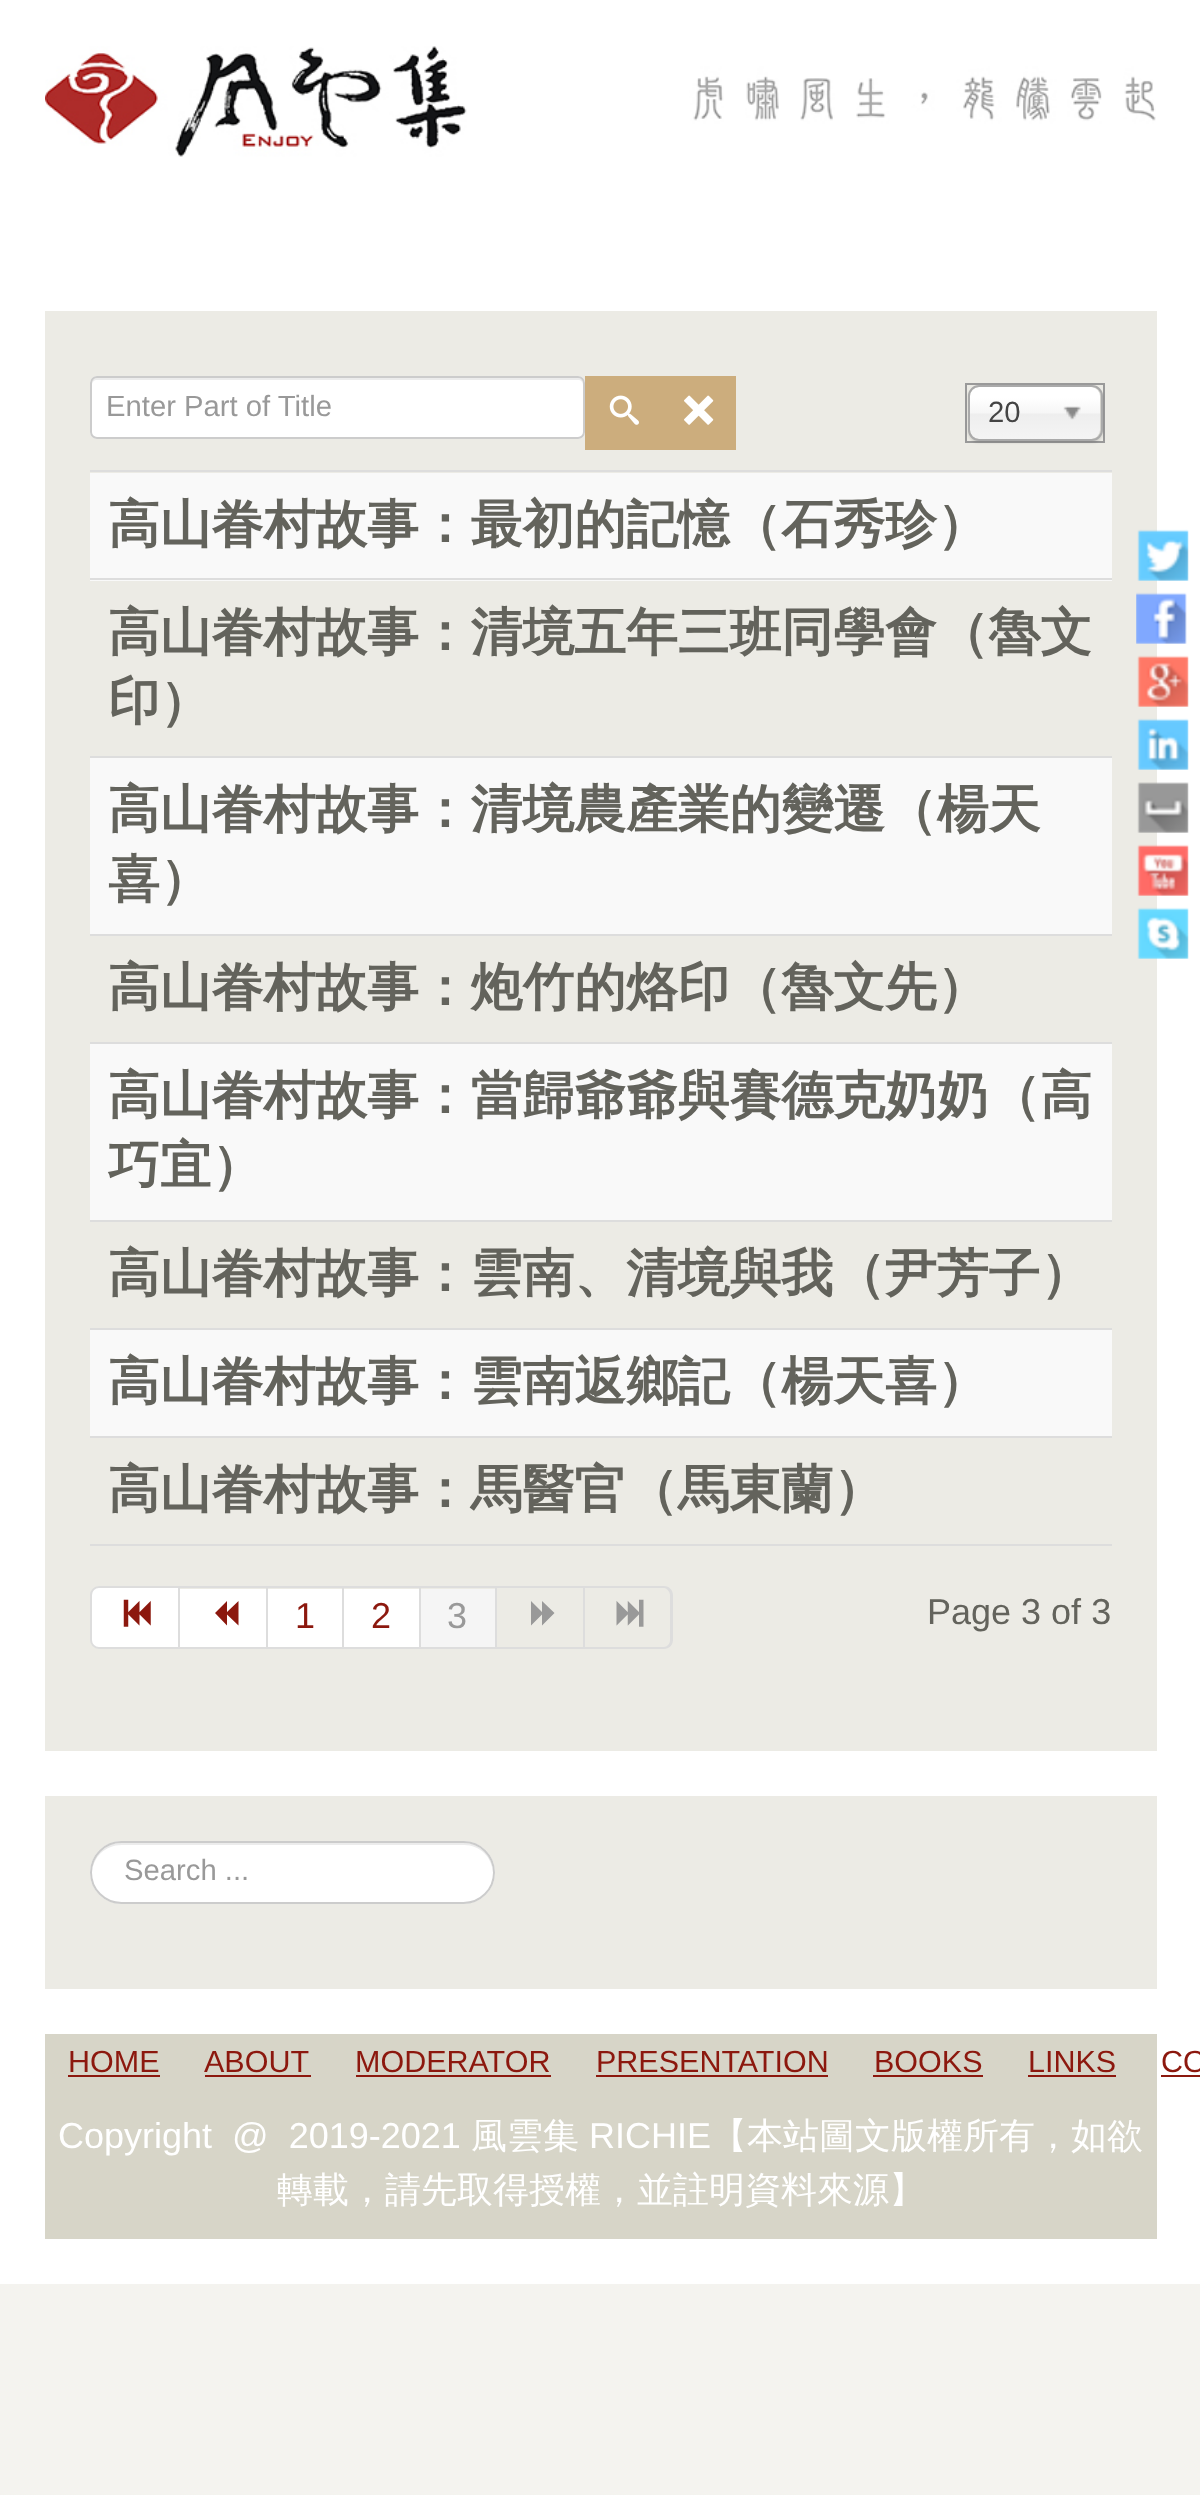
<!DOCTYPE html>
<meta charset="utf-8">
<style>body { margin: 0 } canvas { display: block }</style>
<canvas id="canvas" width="1200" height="2495"></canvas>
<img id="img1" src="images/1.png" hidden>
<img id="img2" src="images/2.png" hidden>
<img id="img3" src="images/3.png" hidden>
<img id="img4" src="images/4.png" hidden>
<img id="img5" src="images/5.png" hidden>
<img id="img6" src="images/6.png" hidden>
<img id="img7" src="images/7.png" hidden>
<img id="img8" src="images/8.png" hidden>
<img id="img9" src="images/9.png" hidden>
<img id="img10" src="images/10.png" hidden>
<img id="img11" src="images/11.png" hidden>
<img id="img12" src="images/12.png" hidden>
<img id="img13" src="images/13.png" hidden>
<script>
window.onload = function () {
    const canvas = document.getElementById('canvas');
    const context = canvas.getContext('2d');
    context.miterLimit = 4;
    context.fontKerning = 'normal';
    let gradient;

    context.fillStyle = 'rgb(244, 243, 239)';
    context.fillRect(0, 0, 1200, 2495);
    context.fillStyle = 'rgb(255, 255, 255)';
    context.fillRect(0, 0, 1200, 2284);
    context.drawImage(document.getElementById('img1'), 45, 46, 1111, 111);
    context.fillStyle = 'rgb(236, 235, 229)';
    context.fillRect(45, 311, 1112, 1440);
    context.fillStyle = 'rgb(255, 255, 255)';
    context.beginPath();
    context.roundRect(90, 376, 495, 63, 7);
    context.fill();
    context.fillStyle = 'rgb(236, 236, 236)';
    context.beginPath();
    context.moveTo(97, 380);
    context.lineTo(578, 380);
    context.bezierCurveTo(581, 380, 583, 382, 583, 385);
    context.lineTo(583, 383);
    context.bezierCurveTo(583, 380, 581, 378, 578, 378);
    context.lineTo(97, 378);
    context.bezierCurveTo(94, 378, 92, 380, 92, 383);
    context.lineTo(92, 385);
    context.bezierCurveTo(92, 382, 94, 380, 97, 380);
    context.closePath();
    context.fill();
    context.beginPath();
    context.roundRect(91, 377, 493, 61, 6);
    context.strokeStyle = 'rgb(204, 204, 204)';
    context.lineWidth = 2;
    context.stroke();
    context.fillStyle = 'rgb(204, 173, 125)';
    context.fillRect(585, 376, 151, 74);
    context.drawImage(document.getElementById('img2'), 609, 395, 30, 30);
    context.drawImage(document.getElementById('img3'), 684, 395, 30, 30);
    context.strokeStyle = 'rgb(153, 153, 153)';
    context.strokeRect(966, 384, 138, 58);
    context.fillStyle = 'rgba(0, 0, 0, 0.1)';
    context.filter = 'blur(1px)';
    context.beginPath();
    context.roundRect(968, 387, 135, 56, 11);
    context.fill();
    context.filter = 'none';
    gradient = context.createLinearGradient(1035, 387, 1035, 439);
    gradient.addColorStop(0.2, 'rgb(255, 255, 255)');
    gradient.addColorStop(0.5, 'rgb(246, 246, 246)');
    gradient.addColorStop(0.52, 'rgb(238, 238, 238)');
    gradient.addColorStop(1, 'rgb(244, 244, 244)');
    context.fillStyle = gradient;
    context.beginPath();
    context.roundRect(970, 387, 130, 52, 9);
    context.fill();
    context.beginPath();
    context.roundRect(969, 386, 133, 54, 10);
    context.strokeStyle = 'rgb(170, 170, 170)';
    context.stroke();
    context.drawImage(document.getElementById('img4'), 1063, 406, 18, 14);
    context.fillStyle = 'rgb(221, 221, 221)';
    context.fillRect(90, 470, 1022, 2);
    context.fillStyle = 'rgb(249, 249, 249)';
    context.fillRect(90, 473, 1022, 108);
    context.fillStyle = 'rgb(221, 221, 221)';
    context.fillRect(90, 578, 1022, 2);
    context.fillRect(90, 756, 1022, 2);
    context.fillStyle = 'rgb(249, 249, 249)';
    context.fillRect(90, 758, 1022, 176);
    context.fillStyle = 'rgb(221, 221, 221)';
    context.fillRect(90, 934, 1022, 2);
    context.fillRect(90, 1042, 1022, 2);
    context.fillStyle = 'rgb(249, 249, 249)';
    context.fillRect(90, 1044, 1022, 176);
    context.fillStyle = 'rgb(221, 221, 221)';
    context.fillRect(90, 1220, 1022, 2);
    context.fillRect(90, 1328, 1022, 2);
    context.fillStyle = 'rgb(249, 249, 249)';
    context.fillRect(90, 1330, 1022, 106);
    context.fillStyle = 'rgb(221, 221, 221)';
    context.fillRect(90, 1436, 1022, 2);
    context.fillRect(90, 1544, 1022, 2);
    context.fillStyle = 'rgb(255, 255, 255)';
    context.beginPath();
    context.roundRect(91, 1587, 88, 61, [8, 0, 0, 8]);
    context.fill();
    context.strokeStyle = 'rgb(221, 221, 221)';
    context.stroke();
    context.drawImage(document.getElementById('img5'), 123, 1599, 28, 28);
    context.fillRect(180, 1589, 86, 58);
    context.fillStyle = 'rgb(221, 221, 221)';
    context.fillRect(180, 1586, 405, 2);
    context.fillRect(266, 1586, 2, 63);
    context.fillRect(180, 1647, 88, 2);
    context.fillStyle = 'rgb(140, 24, 14)';
    context.beginPath();
    context.moveTo(227, 1601);
    context.lineTo(215, 1613);
    context.lineTo(227, 1625.5);
    context.lineTo(227, 1614.5);
    context.lineTo(238.5, 1625.5);
    context.lineTo(238.5, 1601);
    context.lineTo(227, 1612);
    context.closePath();
    context.fill();
    context.fillStyle = 'rgb(255, 255, 255)';
    context.fillRect(268, 1589, 74, 58);
    context.fillStyle = 'rgb(221, 221, 221)';
    context.fillRect(342, 1586, 2, 63);
    context.fillRect(268, 1647, 76, 2);
    context.fillStyle = 'rgb(255, 255, 255)';
    context.fillRect(344, 1589, 75, 58);
    context.fillStyle = 'rgb(221, 221, 221)';
    context.fillRect(419, 1586, 2, 63);
    context.fillRect(344, 1647, 77, 2);
    context.fillStyle = 'rgb(245, 245, 245)';
    context.fillRect(421, 1589, 74, 58);
    context.fillStyle = 'rgb(221, 221, 221)';
    context.fillRect(495, 1586, 2, 63);
    context.fillRect(421, 1647, 76, 2);
    context.fillRect(583, 1586, 2, 63);
    context.fillRect(497, 1647, 88, 2);
    context.fillStyle = 'rgb(153, 153, 153)';
    context.beginPath();
    context.moveTo(542, 1625.5);
    context.lineTo(554.5, 1613);
    context.lineTo(542, 1601);
    context.lineTo(542, 1612);
    context.lineTo(531, 1601);
    context.lineTo(531, 1625.5);
    context.lineTo(542, 1614.5);
    context.closePath();
    context.fill();
    context.fillStyle = 'rgb(221, 221, 221)';
    context.beginPath();
    context.moveTo(585, 1586);
    context.lineTo(664, 1586);
    context.bezierCurveTo(669, 1586, 673, 1590, 673, 1595);
    context.lineTo(673, 1640);
    context.bezierCurveTo(673, 1645, 669, 1649, 664, 1649);
    context.lineTo(585, 1649);
    context.closePath();
    context.moveTo(585, 1588);
    context.lineTo(664, 1588);
    context.bezierCurveTo(667, 1588, 670, 1592, 670, 1595);
    context.lineTo(670, 1640);
    context.bezierCurveTo(670, 1644, 667, 1647, 664, 1647);
    context.lineTo(585, 1647);
    context.closePath();
    context.fill('evenodd');
    context.drawImage(document.getElementById('img6'), 616, 1599, 28, 28);
    context.fillStyle = 'rgb(236, 235, 229)';
    context.fillRect(45, 1796, 1112, 193);
    context.fillStyle = 'rgb(255, 255, 255)';
    context.beginPath();
    context.roundRect(90, 1841, 405, 63, 31.5);
    context.fill();
    context.fillStyle = 'rgb(236, 236, 236)';
    context.beginPath();
    context.moveTo(122, 1845);
    context.lineTo(464, 1845);
    context.bezierCurveTo(480, 1845, 492, 1857, 493, 1873);
    context.lineTo(493, 1872);
    context.bezierCurveTo(493, 1856, 480, 1843, 464, 1843);
    context.lineTo(121, 1843);
    context.bezierCurveTo(105, 1843, 92, 1856, 92, 1872);
    context.lineTo(92, 1873);
    context.bezierCurveTo(93, 1857, 105, 1845, 122, 1845);
    context.closePath();
    context.fill();
    context.beginPath();
    context.roundRect(91, 1842, 403, 61, 30.5);
    context.strokeStyle = 'rgb(204, 204, 204)';
    context.stroke();
    context.fillStyle = 'rgb(215, 213, 200)';
    context.fillRect(45, 2034, 1112, 205);
    context.fillStyle = 'rgb(140, 24, 14)';
    context.fillRect(68, 2075, 92, 2);
    context.fillRect(205, 2075, 106, 2);
    context.fillRect(356, 2075, 195, 2);
    context.fillRect(596, 2075, 232, 2);
    context.fillRect(873, 2075, 110, 2);
    context.fillRect(1028, 2075, 88, 2);
    context.fillRect(1161, 2075, 39, 2);
    context.drawImage(document.getElementById('img7'), 1137, 529, 52, 52);
    context.drawImage(document.getElementById('img8'), 1136, 592, 51, 52);
    context.drawImage(document.getElementById('img9'), 1137, 655, 52, 52);
    context.drawImage(document.getElementById('img10'), 1137, 718, 52, 52);
    context.drawImage(document.getElementById('img11'), 1137, 782, 52, 51);
    context.drawImage(document.getElementById('img12'), 1137, 844, 52, 52);
    context.drawImage(document.getElementById('img13'), 1137, 907, 52, 52);
    context.font = '29.25px Liberation Sans';
    context.fillStyle = 'rgb(153, 153, 153)';
    context.fillText('Enter Part of Title', 106, 416);
    context.fillStyle = 'rgb(68, 68, 68)';
    context.fillText('20', 988, 422);
    context.font = 'bold 51.8px WenQuanYi Zen Hei';
    context.fillStyle = 'rgb(99, 99, 92)';
    context.fillText('高山眷村故事：最初的記憶（石秀珍）', 108, 542);
    context.fillText('高山眷村故事：清境五年三班同學會（魯文', 108, 650);
    context.fillText('印）', 108, 719);
    context.fillText('高山眷村故事：清境農產業的變遷（楊天', 108, 827);
    context.fillText('喜）', 108, 897);
    context.fillText('高山眷村故事：炮竹的烙印（魯文先）', 108, 1005);
    context.fillText('高山眷村故事：當歸爺爺與賽德克奶奶（高', 108, 1113);
    context.fillText('巧宜）', 108, 1183);
    context.fillText('高山眷村故事：雲南、清境與我（尹芳子）', 108, 1291);
    context.fillText('高山眷村故事：雲南返鄉記（楊天喜）', 108, 1399);
    context.fillText('高山眷村故事：馬醫官（馬東蘭）', 108, 1507);
    context.font = '36px Liberation Sans';
    context.fillStyle = 'rgb(140, 24, 14)';
    context.fillText('1', 295, 1628);
    context.fillText('2', 371, 1628);
    context.fillStyle = 'rgb(153, 153, 153)';
    context.fillText('3', 447, 1628);
    context.fillStyle = 'rgb(99, 99, 92)';
    context.fillText('Page 3 of 3', 927, 1624);
    context.font = '29.25px Liberation Sans';
    context.fillStyle = 'rgb(153, 153, 153)';
    context.fillText('Search ...', 124, 1880);
    context.font = '30.5px Liberation Sans';
    context.fillStyle = 'rgb(140, 24, 14)';
    context.fillText('HOME', 68, 2072);
    context.fillText('ABOUT', 204, 2072);
    context.fillText('MODERATOR', 355, 2072);
    context.fillText('PRESENTATION', 596, 2072);
    context.fillText('BOOKS', 874, 2072);
    context.fillText('LINKS', 1028, 2072);
    context.fillText('CO', 1161, 2072);
    context.font = '36px Liberation Sans';
    context.fillStyle = 'rgb(255, 255, 255)';
    context.fillText('Copyright  @  2019-2021', 58, 2148);
    context.font = '500 36px WenQuanYi Zen Hei';
    context.fillText('風雲集', 471, 2148);
    context.font = '36px Liberation Sans';
    context.fillText('RICHIE', 589, 2148);
    context.font = '500 36px WenQuanYi Zen Hei';
    context.fillText('【本站圖文版權所有，如欲', 711, 2148);
    context.fillText('轉載，請先取得授權，並註明資料來源】', 277, 2202);
};
</script>
